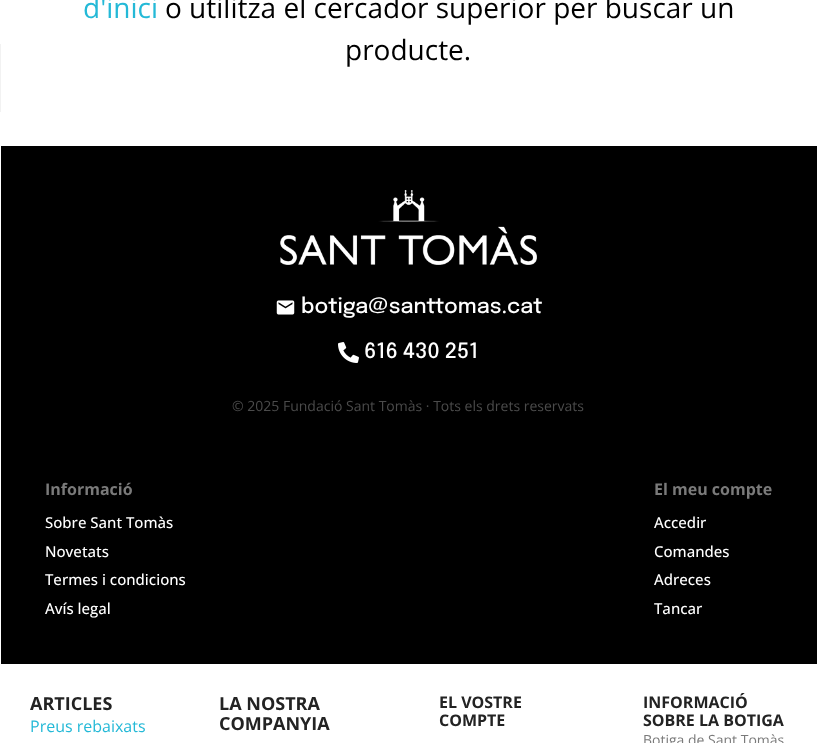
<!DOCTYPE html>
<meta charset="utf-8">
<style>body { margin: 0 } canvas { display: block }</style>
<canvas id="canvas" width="817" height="743"></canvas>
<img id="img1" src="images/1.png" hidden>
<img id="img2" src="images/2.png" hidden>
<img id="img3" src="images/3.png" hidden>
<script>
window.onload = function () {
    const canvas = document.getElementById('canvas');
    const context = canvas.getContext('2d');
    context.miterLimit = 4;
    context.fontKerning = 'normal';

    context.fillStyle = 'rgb(255, 255, 255)';
    context.fillRect(0, 0, 817, 743);
    context.fillStyle = 'rgb(242, 242, 242)';
    context.fillRect(0, 44, 1, 68);
    context.fillStyle = 'rgb(0, 0, 0)';
    context.fillRect(1, 146, 816, 518);
    context.drawImage(document.getElementById('img1'), 280, 190, 257, 75);
    context.drawImage(document.getElementById('img2'), 276, 300, 19, 15);
    context.drawImage(document.getElementById('img3'), 338, 342, 21, 21);
    context.font = '28px Open Sans';
    context.fillStyle = 'rgb(36, 185, 215)';
    context.fillText('d\'inici', 83, 18);
    context.fillStyle = 'rgb(0, 0, 0)';
    context.fillText('o utilitza el cercador superior per buscar un', 165, 18);
    context.fillText('producte.', 345, 60);
    context.font = '500 21px Epilogue';
    context.fillStyle = 'rgb(255, 255, 255)';
    context.fillText('botiga@santtomas.cat', 301, 313);
    context.fillText('616 430 251', 364, 358);
    context.font = '14px Open Sans';
    context.fillStyle = 'rgb(75, 75, 75)';
    context.fillText('© 2025 Fundació Sant Tomàs · Tots els drets reservats', 232, 411);
    context.font = 'bold 16px Open Sans';
    context.fillStyle = 'rgb(122, 122, 122)';
    context.fillText('Informació', 45, 495);
    context.font = '500 15px Open Sans';
    context.fillStyle = 'rgb(255, 255, 255)';
    context.fillText('Sobre Sant Tomàs', 45, 528);
    context.fillText('Novetats', 45, 557);
    context.fillText('Termes i condicions', 45, 585);
    context.fillText('Avís legal', 45, 614);
    context.font = 'bold 16px Open Sans';
    context.fillStyle = 'rgb(122, 122, 122)';
    context.fillText('El meu compte', 654, 495);
    context.font = '500 15px Open Sans';
    context.fillStyle = 'rgb(255, 255, 255)';
    context.fillText('Accedir', 654, 528);
    context.fillText('Comandes', 654, 557);
    context.fillText('Adreces', 654, 585);
    context.fillText('Tancar', 654, 614);
    context.font = 'bold 18px Open Sans';
    context.fillStyle = 'rgb(35, 35, 35)';
    context.fillText('ARTICLES', 30, 710);
    context.font = '16px Open Sans';
    context.fillStyle = 'rgb(36, 185, 215)';
    context.fillText('Preus rebaixats', 30, 732);
    context.font = 'bold 18px Open Sans';
    context.fillStyle = 'rgb(35, 35, 35)';
    context.fillText('LA NOSTRA', 219, 710);
    context.fillText('COMPANYIA', 219, 730);
    context.font = 'bold 16px Open Sans';
    context.fillText('EL VOSTRE', 439, 708);
    context.fillText('COMPTE', 439, 726);
    context.fillText('INFORMACIÓ', 643, 708);
    context.fillText('SOBRE LA BOTIGA', 643, 726);
    context.font = '14px Open Sans';
    context.fillStyle = 'rgb(122, 122, 122)';
    context.fillText('Botiga de Sant Tomàs', 643, 745);
};
</script>
